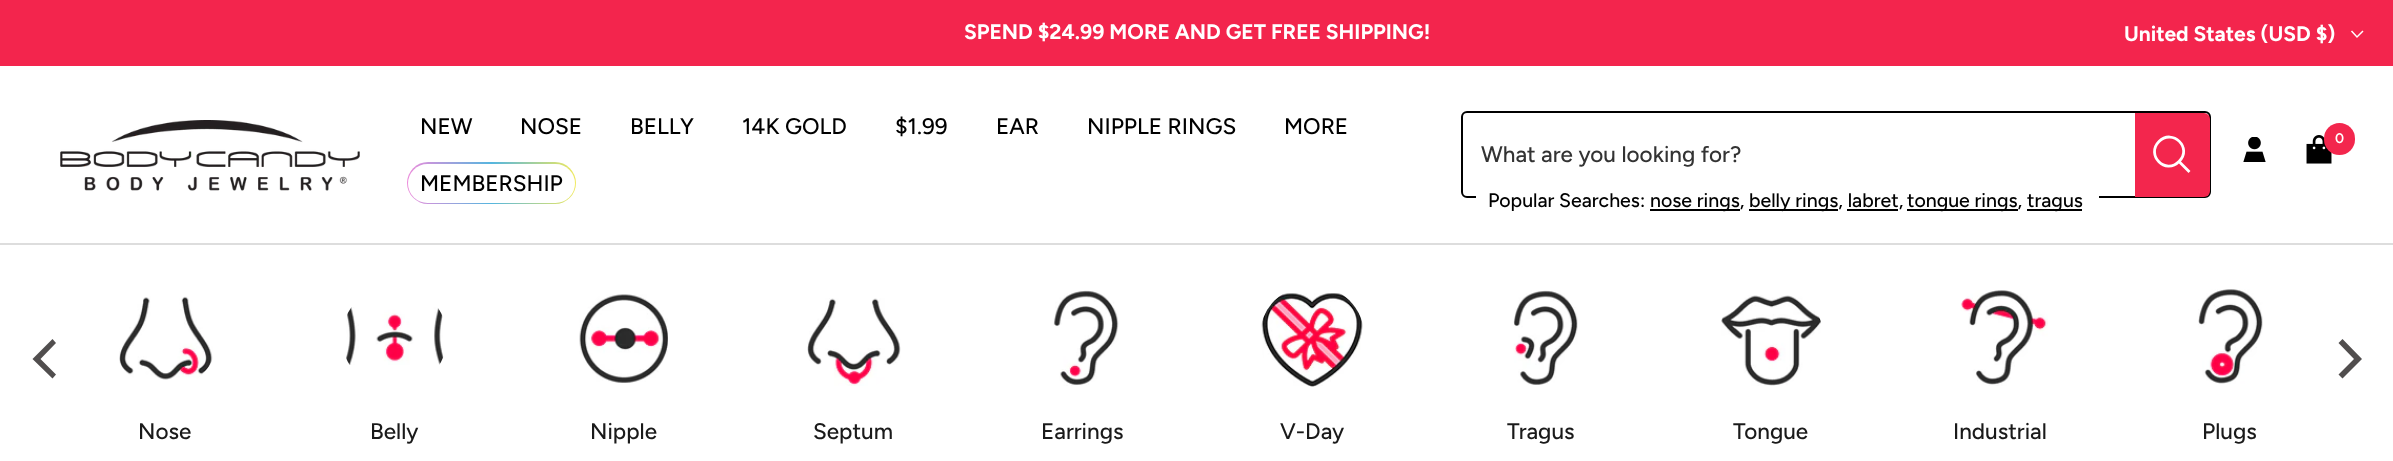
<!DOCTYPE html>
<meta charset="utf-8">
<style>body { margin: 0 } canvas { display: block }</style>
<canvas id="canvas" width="2393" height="461"></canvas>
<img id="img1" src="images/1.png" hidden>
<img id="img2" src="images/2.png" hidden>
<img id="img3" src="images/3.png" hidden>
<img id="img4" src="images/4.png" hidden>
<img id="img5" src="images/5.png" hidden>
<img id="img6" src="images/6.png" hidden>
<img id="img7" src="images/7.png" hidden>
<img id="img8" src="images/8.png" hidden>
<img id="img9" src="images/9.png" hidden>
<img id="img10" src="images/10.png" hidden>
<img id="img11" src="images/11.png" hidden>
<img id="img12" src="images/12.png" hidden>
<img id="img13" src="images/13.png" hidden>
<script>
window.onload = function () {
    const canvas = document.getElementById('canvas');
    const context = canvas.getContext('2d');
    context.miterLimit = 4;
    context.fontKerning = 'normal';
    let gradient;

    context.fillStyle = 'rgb(255, 255, 255)';
    context.fillRect(0, 0, 2393, 461);
    context.fillStyle = 'rgb(243, 37, 77)';
    context.fillRect(0, 0, 2393, 66);
    context.beginPath();
    context.moveTo(2351.5, 31);
    context.lineTo(2357, 37);
    context.lineTo(2363, 31);
    context.strokeStyle = 'rgb(255, 255, 255)';
    context.lineWidth = 1.5;
    context.stroke();
    context.fillStyle = 'rgb(221, 221, 221)';
    context.fillRect(0, 243, 2393, 2);
    context.drawImage(document.getElementById('img1'), 60, 120, 300, 71);
    gradient = context.createLinearGradient(407, 183, 576, 183);
    gradient.addColorStop(0, 'rgb(236, 139, 219)');
    gradient.addColorStop(0.5, 'rgb(85, 182, 223)');
    gradient.addColorStop(1, 'rgb(240, 233, 92)');
    context.fillStyle = gradient;
    context.beginPath();
    context.roundRect(407, 162, 169, 42, 21);
    context.fill();
    context.fillStyle = 'rgb(255, 255, 255)';
    context.beginPath();
    context.roundRect(408, 164, 167, 39, 19.5);
    context.fill();
    context.drawImage(document.getElementById('img2'), 2243, 137, 23, 25);
    context.drawImage(document.getElementById('img3'), 2306, 135, 26, 29);
    context.fillStyle = 'rgb(243, 38, 77)';
    context.beginPath();
    context.roundRect(2324, 123, 31, 32, 15.5);
    context.fill();
    context.beginPath();
    context.roundRect(1462, 112, 748, 85, 5);
    context.strokeStyle = 'rgb(0, 0, 0)';
    context.lineWidth = 2;
    context.stroke();
    context.beginPath();
    context.roundRect(2135, 113, 75, 84, [0, 6, 6, 0]);
    context.fill();
    context.beginPath();
    context.moveTo(2179, 161.5);
    context.bezierCurveTo(2193, 148, 2172.5, 128, 2159, 141.5);
    context.bezierCurveTo(2145.5, 155, 2165.5, 175.5, 2179, 161.5);
    context.closePath();
    context.moveTo(2179, 161.5);
    context.lineTo(2189.5, 172);
    context.strokeStyle = 'rgb(255, 255, 255)';
    context.lineWidth = 2.8;
    context.stroke();
    context.fillStyle = 'rgb(255, 255, 255)';
    context.fillRect(1476, 196, 623, 2);
    context.fillStyle = 'rgb(0, 0, 0)';
    context.fillRect(1650, 209, 90, 2);
    context.fillRect(1749, 209, 89, 2);
    context.fillRect(1907, 209, 111, 2);
    context.fillRect(2027, 209, 55, 2);
    context.fillRect(1847, 209, 51, 2);
    context.fillStyle = 'rgb(81, 78, 78)';
    context.beginPath();
    context.moveTo(32.5, 359);
    context.lineTo(52.5, 378.5);
    context.lineTo(56, 374.5);
    context.lineTo(40.5, 359);
    context.lineTo(56, 343);
    context.lineTo(52.5, 339);
    context.closePath();
    context.fill();
    context.beginPath();
    context.moveTo(2362, 359);
    context.lineTo(2342.5, 339);
    context.lineTo(2338.5, 343);
    context.lineTo(2354, 359);
    context.lineTo(2338.5, 374.5);
    context.lineTo(2342.5, 378.5);
    context.closePath();
    context.fill();
    context.drawImage(document.getElementById('img4'), 119, 296, 94, 84);
    context.drawImage(document.getElementById('img5'), 346, 307, 98, 58);
    context.drawImage(document.getElementById('img6'), 579, 294, 89, 89);
    context.drawImage(document.getElementById('img7'), 807, 298, 94, 88);
    context.drawImage(document.getElementById('img8'), 1053, 290, 66, 96);
    context.drawImage(document.getElementById('img9'), 1261, 293, 102, 94);
    context.drawImage(document.getElementById('img10'), 1513, 290, 65, 95);
    context.drawImage(document.getElementById('img11'), 1721, 295, 100, 91);
    context.drawImage(document.getElementById('img12'), 1960, 290, 88, 96);
    context.drawImage(document.getElementById('img13'), 2198, 289, 65, 95);
    context.font = 'bold 21px Figtree';
    context.fillStyle = 'rgb(255, 255, 255)';
    context.fillText('SPEND $24.99 MORE AND GET FREE SHIPPING!', 964, 39);
    context.fillText('United States (USD $)', 2124, 41);
    context.font = '500 22.5px Figtree';
    context.fillStyle = 'rgb(0, 0, 0)';
    context.fillText('NEW', 420, 134);
    context.fillText('NOSE', 520, 134);
    context.fillText('BELLY', 630, 134);
    context.fillText('14K GOLD', 742, 134);
    context.fillText('$1.99', 895, 134);
    context.fillText('EAR', 996, 134);
    context.fillText('NIPPLE RINGS', 1087, 134);
    context.fillText('MORE', 1284, 134);
    context.fillText('MEMBERSHIP', 420, 191);
    context.font = '600 14px Figtree';
    context.fillStyle = 'rgb(255, 255, 255)';
    context.fillText('0', 2335, 143);
    context.font = '500 22.5px Figtree';
    context.fillStyle = 'rgb(51, 51, 51)';
    context.fillText('What are you looking for?', 1481, 162);
    context.font = '500 19.5px Figtree';
    context.fillStyle = 'rgb(0, 0, 0)';
    context.fillText('Popular Searches:', 1488, 207);
    context.fillText('nose rings,', 1650, 207);
    context.fillText('belly rings, labret,', 1749, 207);
    context.fillText('tongue rings,', 1907, 207);
    context.fillText('tragus', 2027, 207);
    context.font = '500 22.5px Figtree';
    context.fillStyle = 'rgb(26, 26, 26)';
    context.fillText('Nose', 138, 439);
    context.fillText('Belly', 370, 439);
    context.fillText('Nipple', 590, 439);
    context.fillText('Septum', 813, 439);
    context.fillText('Earrings', 1041, 439);
    context.fillText('V-Day', 1280, 439);
    context.fillText('Tragus', 1507, 439);
    context.fillText('Tongue', 1733, 439);
    context.fillText('Industrial', 1953, 439);
    context.fillText('Plugs', 2202, 439);
};
</script>
